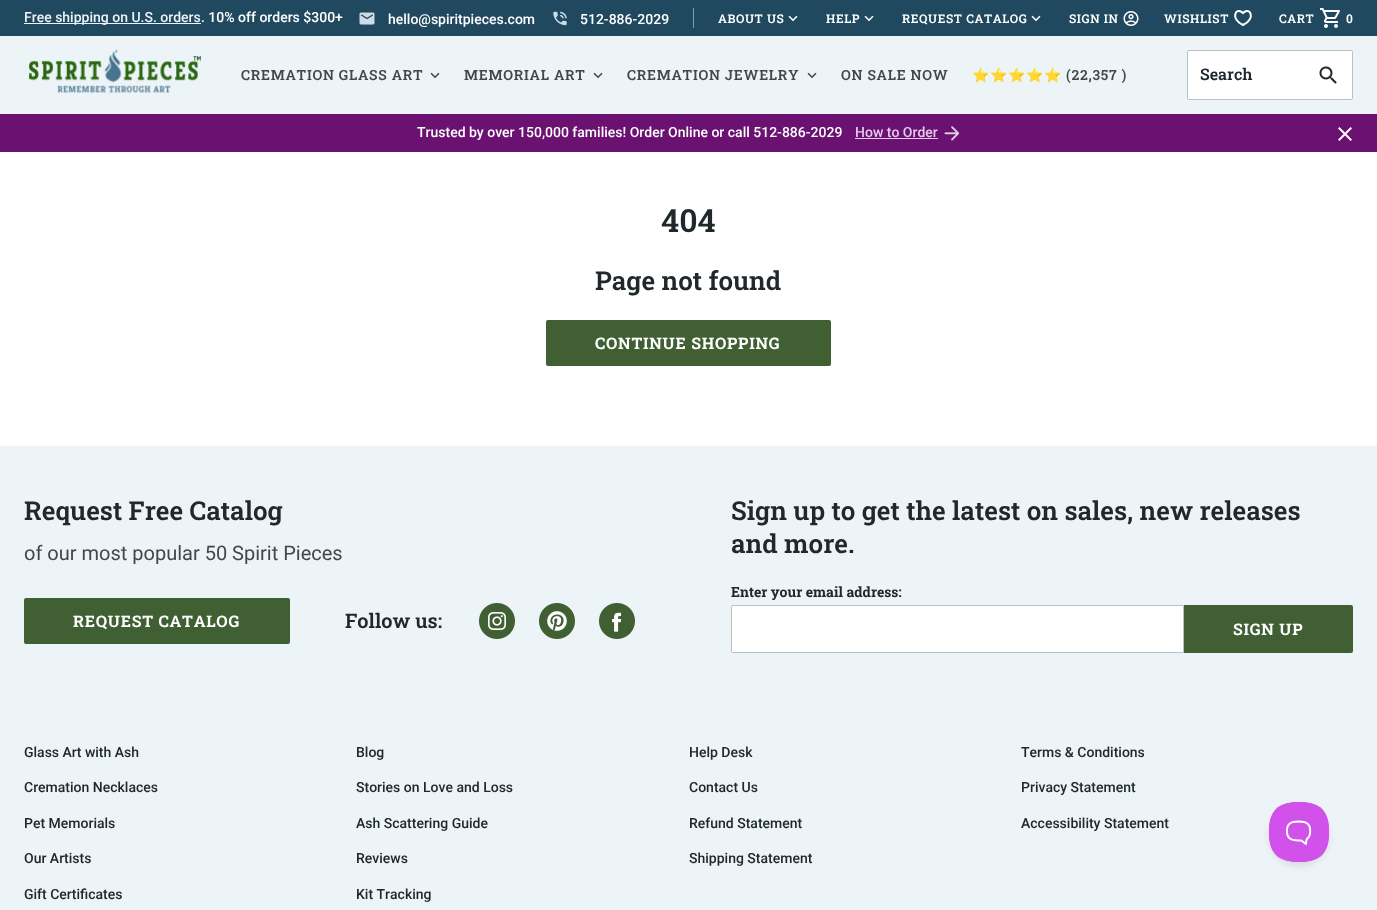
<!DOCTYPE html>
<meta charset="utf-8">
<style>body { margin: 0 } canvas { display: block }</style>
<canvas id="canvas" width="1377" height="910"></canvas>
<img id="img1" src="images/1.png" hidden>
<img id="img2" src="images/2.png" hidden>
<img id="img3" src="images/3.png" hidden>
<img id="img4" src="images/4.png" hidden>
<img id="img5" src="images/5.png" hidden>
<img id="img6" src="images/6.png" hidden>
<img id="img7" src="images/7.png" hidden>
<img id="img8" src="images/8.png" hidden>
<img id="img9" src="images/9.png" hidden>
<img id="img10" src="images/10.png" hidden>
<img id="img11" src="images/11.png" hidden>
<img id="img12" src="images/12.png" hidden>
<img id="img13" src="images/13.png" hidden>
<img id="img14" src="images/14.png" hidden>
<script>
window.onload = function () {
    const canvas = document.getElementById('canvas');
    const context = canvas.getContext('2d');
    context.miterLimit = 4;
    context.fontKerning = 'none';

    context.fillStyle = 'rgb(255, 255, 255)';
    context.fillRect(0, 0, 1377, 910);
    context.fillStyle = 'rgb(32, 73, 96)';
    context.fillRect(0, 0, 1377, 36);
    context.fillStyle = 'rgb(237, 244, 248)';
    context.fillRect(24, 23, 177, 1);
    context.fillStyle = 'rgb(122, 161, 184)';
    context.fillRect(693, 8, 1, 20);
    context.drawImage(document.getElementById('img1'), 359, 12, 16, 13);
    context.drawImage(document.getElementById('img2'), 553, 11, 14, 15);
    context.drawImage(document.getElementById('img3'), 788, 15, 10, 7);
    context.drawImage(document.getElementById('img3'), 864, 15, 10, 7);
    context.drawImage(document.getElementById('img3'), 1031, 15, 10, 7);
    context.drawImage(document.getElementById('img4'), 1123, 11, 16, 15);
    context.beginPath();
    context.moveTo(1243, 25);
    context.bezierCurveTo(1229.5, 18.5, 1236, 6, 1243, 13);
    context.bezierCurveTo(1250, 6, 1256.5, 18.5, 1243, 25);
    context.closePath();
    context.strokeStyle = 'rgb(255, 255, 255)';
    context.lineWidth = 2;
    context.stroke();
    context.drawImage(document.getElementById('img5'), 1320, 8, 20, 20);
    context.fillStyle = 'rgb(237, 244, 248)';
    context.fillRect(0, 36, 1377, 78);
    context.drawImage(document.getElementById('img6'), 28, 49, 174, 45);
    context.drawImage(document.getElementById('img7'), 430, 72, 10, 7);
    context.drawImage(document.getElementById('img7'), 593, 72, 10, 7);
    context.drawImage(document.getElementById('img7'), 807, 72, 10, 7);
    context.fillStyle = 'rgb(255, 255, 255)';
    context.beginPath();
    context.roundRect(1187.5, 50.5, 165, 49, 1.5);
    context.fill();
    context.strokeStyle = 'rgb(186, 193, 196)';
    context.lineWidth = 1;
    context.stroke();
    context.drawImage(document.getElementById('img8'), 1319, 66, 18, 18);
    context.fillStyle = 'rgb(106, 17, 113)';
    context.fillRect(0, 114, 1377, 38);
    context.fillStyle = 'rgb(228, 204, 230)';
    context.fillRect(855, 138, 83, 1);
    context.drawImage(document.getElementById('img9'), 944, 126, 16, 15);
    context.drawImage(document.getElementById('img10'), 1338, 127, 14, 14);
    context.fillStyle = 'rgb(64, 95, 51)';
    context.beginPath();
    context.roundRect(546, 320, 285, 46, 2);
    context.fill();
    context.fillStyle = 'rgb(237, 244, 248)';
    context.fillRect(0, 446, 1377, 464);
    context.fillStyle = 'rgb(64, 95, 51)';
    context.beginPath();
    context.roundRect(24, 598, 266, 46, 2);
    context.fill();
    context.drawImage(document.getElementById('img11'), 479, 603, 36, 36);
    context.drawImage(document.getElementById('img12'), 539, 603, 36, 36);
    context.drawImage(document.getElementById('img13'), 599, 603, 36, 36);
    context.fillStyle = 'rgb(255, 255, 255)';
    context.beginPath();
    context.roundRect(731.5, 605.5, 452, 47, [1.5, 0, 0, 1.5]);
    context.fill();
    context.stroke();
    context.fillStyle = 'rgb(64, 95, 51)';
    context.beginPath();
    context.roundRect(1184, 605, 169, 48, [0, 2, 2, 0]);
    context.fill();
    context.fillStyle = 'rgba(0, 0, 0, 0.1)';
    context.filter = 'blur(3.5px)';
    context.beginPath();
    context.roundRect(1269, 806, 60, 60, 30);
    context.fill();
    context.filter = 'none';
    context.drawImage(document.getElementById('img14'), 1269, 802, 60, 60);
    context.font = '500 14px Roboto';
    context.fillStyle = 'rgb(237, 244, 248)';
    context.fillText('Free shipping on U.S. orders', 24, 22);
    context.fillStyle = 'rgb(255, 255, 255)';
    context.fillText('. 10% off orders $300+', 201, 22);
    context.fillText('hello@spiritpieces.com', 388, 24);
    context.fillText('512-886-2029', 580, 24);
    context.letterSpacing = '0.6px';
    context.font = '600 12px Roboto Slab';
    context.fillText('ABOUT US', 718, 23);
    context.fillText('HELP', 826, 23);
    context.fillText('REQUEST CATALOG', 902, 23);
    context.fillText('SIGN IN', 1069, 23);
    context.fillText('WISHLIST', 1164, 23);
    context.fillText('CART', 1279, 23);
    context.fillText('0', 1346, 23);
    context.letterSpacing = '0.75px';
    context.font = '600 14px Roboto Slab';
    context.fillStyle = 'rgb(67, 71, 73)';
    context.fillText('CREMATION GLASS ART', 241, 80);
    context.fillText('MEMORIAL ART', 464, 80);
    context.fillText('CREMATION JEWELRY', 627, 80);
    context.fillText('ON SALE NOW', 841, 80);
    context.save();
    context.beginPath();
    context.rect(972, 36, 155, 78);
    context.clip();
    context.font = '14px Noto Color Emoji';
    context.fillText('⭐⭐⭐⭐⭐', 972, 80);
    context.restore();
    context.fillText('(22,357 )', 1066, 80);
    context.letterSpacing = '0px';
    context.font = '600 16px Roboto Slab';
    context.fillStyle = 'rgb(32, 40, 44)';
    context.fillText('Search', 1200, 80);
    context.font = '500 14px Roboto';
    context.fillStyle = 'rgb(255, 255, 255)';
    context.fillText('Trusted by over 150,000 families! Order Online or call 512-886-2029', 417, 137);
    context.fillStyle = 'rgb(228, 204, 230)';
    context.fillText('How to Order', 855, 137);
    context.font = '600 32px Roboto Slab';
    context.fillStyle = 'rgb(32, 40, 44)';
    context.fillText('404', 661, 232);
    context.font = '600 26px Roboto Slab';
    context.fillText('Page not found', 595, 290);
    context.letterSpacing = '0.75px';
    context.font = 'bold 16px Roboto Slab';
    context.fillStyle = 'rgb(255, 255, 255)';
    context.fillText('CONTINUE SHOPPING', 595, 349);
    context.letterSpacing = '0px';
    context.font = '600 26px Roboto Slab';
    context.fillStyle = 'rgb(32, 40, 44)';
    context.fillText('Request Free Catalog', 24, 520);
    context.font = '20px Roboto';
    context.fillStyle = 'rgb(67, 71, 73)';
    context.fillText('of our most popular 50 Spirit Pieces', 24, 560);
    context.letterSpacing = '0.75px';
    context.font = 'bold 16px Roboto Slab';
    context.fillStyle = 'rgb(255, 255, 255)';
    context.fillText('REQUEST CATALOG', 73, 627);
    context.letterSpacing = '0px';
    context.font = '600 20px Roboto Slab';
    context.fillStyle = 'rgb(32, 40, 44)';
    context.fillText('Follow us:', 345, 628);
    context.font = '600 26px Roboto Slab';
    context.fillText('Sign up to get the latest on sales, new releases', 731, 520);
    context.fillText('and more.', 731, 553);
    context.font = 'bold 14px Roboto Slab';
    context.fillText('Enter your email address:', 731, 597);
    context.letterSpacing = '0.75px';
    context.font = 'bold 16px Roboto Slab';
    context.fillStyle = 'rgb(255, 255, 255)';
    context.fillText('SIGN UP', 1233, 635);
    context.letterSpacing = '0px';
    context.font = '500 14px Roboto';
    context.fillStyle = 'rgb(32, 40, 44)';
    context.fillText('Glass Art with Ash', 24, 757);
    context.fillText('Cremation Necklaces', 24, 792);
    context.fillText('Pet Memorials', 24, 828);
    context.fillText('Our Artists', 24, 863);
    context.fillText('Gift Certificates', 24, 899);
    context.fillText('Blog', 356, 757);
    context.fillText('Stories on Love and Loss', 356, 792);
    context.fillText('Ash Scattering Guide', 356, 828);
    context.fillText('Reviews', 356, 863);
    context.fillText('Kit Tracking', 356, 899);
    context.fillText('Help Desk', 689, 757);
    context.fillText('Contact Us', 689, 792);
    context.fillText('Refund Statement', 689, 828);
    context.fillText('Shipping Statement', 689, 863);
    context.fillText('Terms & Conditions', 1021, 757);
    context.fillText('Privacy Statement', 1021, 792);
    context.fillText('Accessibility Statement', 1021, 828);
};
</script>
